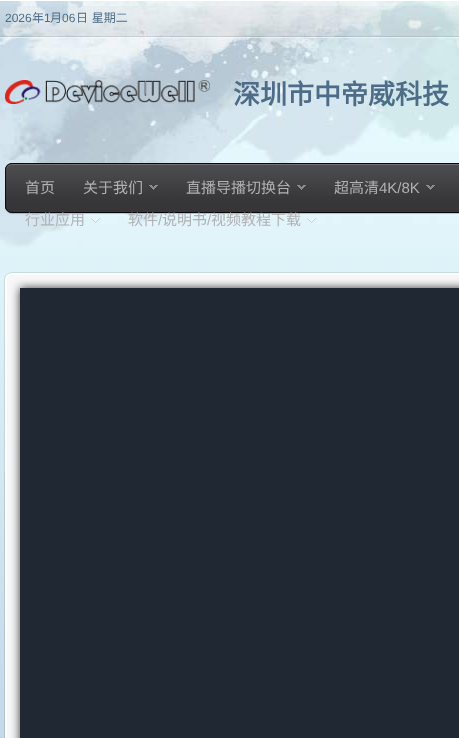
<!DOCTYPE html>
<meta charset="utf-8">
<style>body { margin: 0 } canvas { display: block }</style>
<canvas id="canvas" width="459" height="738"></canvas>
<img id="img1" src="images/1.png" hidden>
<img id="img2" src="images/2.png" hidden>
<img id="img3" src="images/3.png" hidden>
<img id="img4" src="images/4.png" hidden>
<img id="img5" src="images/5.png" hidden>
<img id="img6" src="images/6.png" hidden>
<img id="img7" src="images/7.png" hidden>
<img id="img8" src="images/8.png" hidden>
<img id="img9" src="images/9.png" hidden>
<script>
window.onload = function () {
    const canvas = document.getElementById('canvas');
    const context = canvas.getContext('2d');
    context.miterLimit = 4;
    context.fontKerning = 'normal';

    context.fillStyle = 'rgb(255, 255, 255)';
    context.fillRect(0, 0, 459, 738);
    context.drawImage(document.getElementById('img1'), 0, 248, 459, 490);
    context.drawImage(document.getElementById('img2'), 0, 1, 459, 247);
    context.fillStyle = 'rgba(253, 253, 255, 0.5)';
    context.fillRect(0, 37, 459, 1);
    context.drawImage(document.getElementById('img3'), 0, 6, 459, 31);
    context.fillStyle = 'rgba(0, 0, 2, 0.1)';
    context.fillRect(0, 36, 459, 1);
    context.drawImage(document.getElementById('img4'), 5, 80, 205, 24);
    context.fillStyle = 'rgba(0, 0, 2, 0.2)';
    context.filter = 'blur(0.5px)';
    context.beginPath();
    context.roundRect(5, 164, 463, 50, 7);
    context.fill();
    context.filter = 'none';
    context.fillStyle = 'rgb(54, 54, 56)';
    context.beginPath();
    context.roundRect(5, 163, 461, 50, 7);
    context.fill();
    context.drawImage(document.getElementById('img5'), 5, 164, 454, 45);
    context.fillStyle = 'rgb(112, 112, 114)';
    context.beginPath();
    context.moveTo(12, 165);
    context.lineTo(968, 165);
    context.bezierCurveTo(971, 165, 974, 168, 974, 171);
    context.lineTo(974, 170);
    context.bezierCurveTo(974, 167, 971, 164, 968, 164);
    context.lineTo(12, 164);
    context.bezierCurveTo(9, 164, 6, 167, 6, 170);
    context.lineTo(6, 171);
    context.bezierCurveTo(6, 168, 9, 165, 12, 165);
    context.closePath();
    context.fill();
    context.beginPath();
    context.roundRect(5.5, 163.5, 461, 49, 6.5);
    context.strokeStyle = 'rgba(0, 0, 2, 0.8)';
    context.stroke();
    context.drawImage(document.getElementById('img6'), 149, 185, 9, 6);
    context.drawImage(document.getElementById('img7'), 297, 185, 9, 6);
    context.drawImage(document.getElementById('img8'), 426, 185, 9, 6);
    context.drawImage(document.getElementById('img9'), 91, 217, 9, 6);
    context.drawImage(document.getElementById('img9'), 307, 217, 9, 6);
    context.beginPath();
    context.roundRect(4.5, 272.5, 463, 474, 7.5);
    context.strokeStyle = 'rgba(0, 0, 2, 0.1)';
    context.stroke();
    context.fillStyle = 'rgb(247, 247, 249)';
    context.beginPath();
    context.roundRect(6, 274, 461, 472, 6);
    context.fill();
    context.strokeStyle = 'rgb(255, 255, 255)';
    context.lineWidth = 2;
    context.stroke();
    context.fillStyle = 'rgb(51, 51, 51)';
    context.filter = 'blur(5px)';
    context.beginPath();
    context.rect(20, 288, 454, 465);
    context.fill();
    context.filter = 'none';
    context.fillStyle = 'rgb(32, 40, 52)';
    context.fillRect(20, 288, 439, 450);
    context.font = '12px Liberation Sans';
    context.fillStyle = 'rgb(77, 108, 136)';
    context.fillText('2026', 5, 22);
    context.font = '12px Noto Sans CJK SC';
    context.fillText('年', 32, 22);
    context.font = '12px Liberation Sans';
    context.fillText('1', 44, 22);
    context.font = '12px Noto Sans CJK SC';
    context.fillText('月', 50, 22);
    context.font = '12px Liberation Sans';
    context.fillText('06', 62, 22);
    context.wordSpacing = '1px';
    context.font = '12px Noto Sans CJK SC';
    context.fillText('日 星期二', 76, 22);
    context.wordSpacing = '0px';
    context.font = 'bold 27px Noto Sans CJK SC';
    context.fillText('深圳市中帝威科技', 233, 104);
    context.font = '15px Noto Sans CJK SC';
    context.fillStyle = 'rgb(177, 177, 179)';
    context.fillText('首页', 25, 193);
    context.fillText('关于我们', 83, 193);
    context.fillText('直播导播切换台', 186, 193);
    context.fillText('超高清', 334, 193);
    context.font = '15px Liberation Sans';
    context.fillText('4K/8K', 379, 193);
    context.font = '15px Noto Sans CJK SC';
    context.fillText('行业应用', 25, 225);
    context.fillText('软件', 128, 225);
    context.font = '15px Liberation Sans';
    context.fillText('/', 158, 225);
    context.font = '15px Noto Sans CJK SC';
    context.fillText('说明书', 162, 225);
    context.font = '15px Liberation Sans';
    context.fillText('/', 207, 225);
    context.font = '15px Noto Sans CJK SC';
    context.fillText('视频教程下载', 211, 225);
};
</script>
